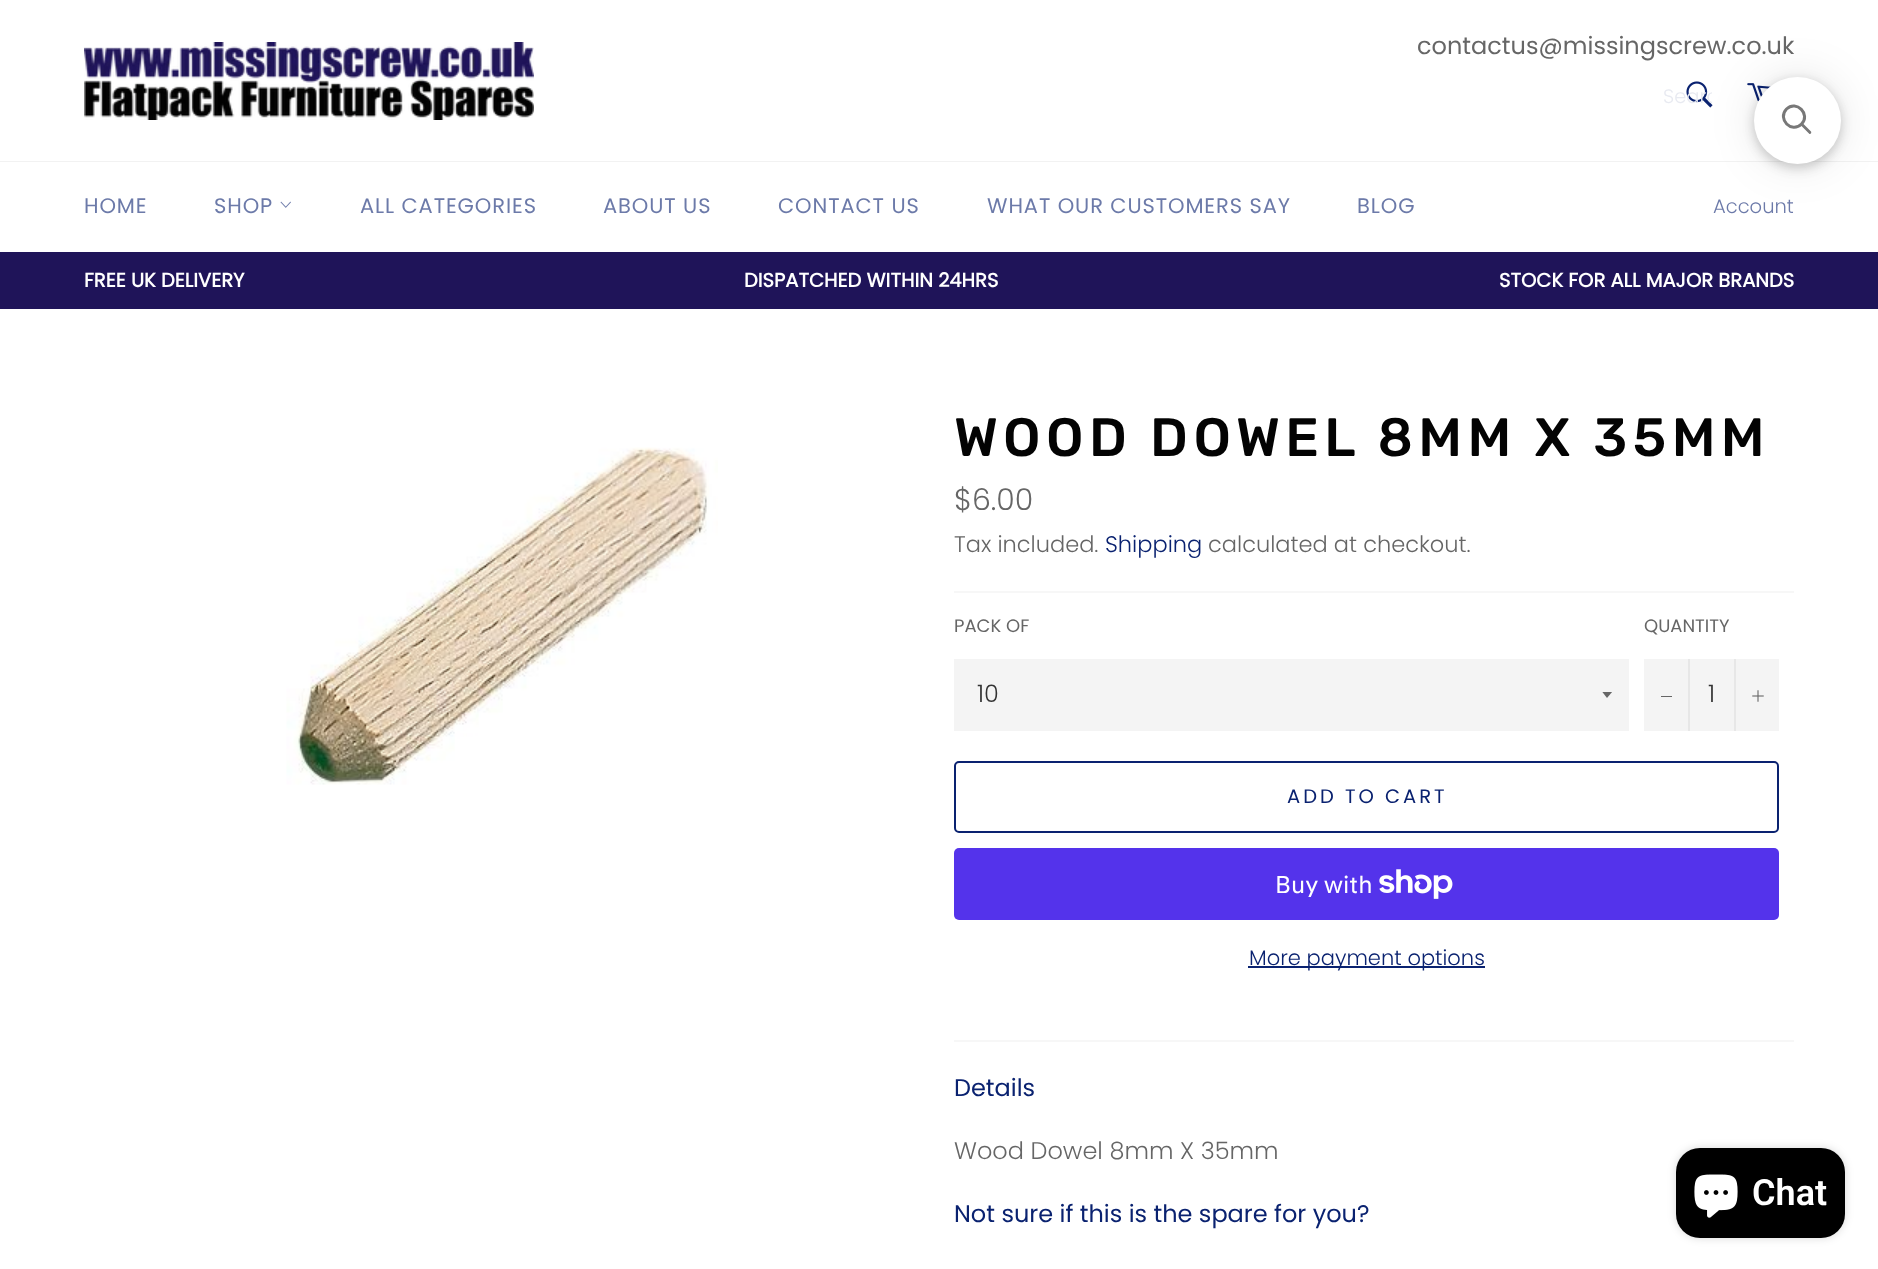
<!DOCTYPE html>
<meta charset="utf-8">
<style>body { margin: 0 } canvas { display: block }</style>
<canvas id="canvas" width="1878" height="1269"></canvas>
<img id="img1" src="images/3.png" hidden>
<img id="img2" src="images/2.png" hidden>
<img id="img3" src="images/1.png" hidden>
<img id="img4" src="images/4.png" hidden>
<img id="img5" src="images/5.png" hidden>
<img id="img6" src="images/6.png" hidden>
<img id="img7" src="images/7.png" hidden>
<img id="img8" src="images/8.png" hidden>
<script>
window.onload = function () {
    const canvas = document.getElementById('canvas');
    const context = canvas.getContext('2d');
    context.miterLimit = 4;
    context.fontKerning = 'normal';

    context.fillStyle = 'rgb(255, 255, 255)';
    context.fillRect(0, 0, 1878, 1269);
    context.drawImage(document.getElementById('img1'), 1747, 83, 24, 19);
    context.fillStyle = 'rgb(242, 242, 242)';
    context.fillRect(0, 161, 1878, 1);
    context.fillStyle = 'rgba(0, 0, 0, 0.05)';
    context.filter = 'blur(6px)';
    context.beginPath();
    context.roundRect(1754, 83, 87, 87, 43.5);
    context.fill();
    context.filter = 'none';
    context.fillStyle = 'rgba(0, 0, 0, 0.15)';
    context.filter = 'blur(6px)';
    context.beginPath();
    context.roundRect(1754, 80, 87, 87, 43.5);
    context.fill();
    context.filter = 'none';
    context.drawImage(document.getElementById('img2'), 1686, 81, 27, 27);
    context.fillStyle = 'rgba(0, 0, 0, 0.1)';
    context.filter = 'blur(22.5px)';
    context.beginPath();
    context.roundRect(1754, 77, 87, 87, 43.5);
    context.fill();
    context.filter = 'none';
    context.fillStyle = 'rgb(255, 255, 255)';
    context.beginPath();
    context.arc(1797.5, 120.5, 43.5, 0, 2 * Math.PI);
    context.fill();
    context.beginPath();
    context.moveTo(1786.5, 109);
    context.bezierCurveTo(1796.5, 99.5, 1811, 114.5, 1801.5, 124);
    context.bezierCurveTo(1791.5, 134, 1777, 119, 1786.5, 109);
    context.closePath();
    context.strokeStyle = 'rgb(120, 120, 120)';
    context.lineWidth = 3;
    context.stroke();
    context.fillStyle = 'rgb(120, 120, 120)';
    context.beginPath();
    context.moveTo(1800.5, 125);
    context.lineTo(1802.5, 123);
    context.lineTo(1811, 131.5);
    context.bezierCurveTo(1812, 133, 1810, 135, 1809, 133.5);
    context.closePath();
    context.fill();
    context.drawImage(document.getElementById('img3'), 84, 42, 450, 78);
    context.drawImage(document.getElementById('img4'), 280, 201, 11, 7);
    context.fillStyle = 'rgb(31, 20, 89)';
    context.fillRect(0, 252, 1878, 57);
    context.drawImage(document.getElementById('img5'), 286, 447, 432, 338);
    context.fillStyle = 'rgb(247, 247, 247)';
    context.fillRect(954, 591, 840, 2);
    context.fillStyle = 'rgb(244, 244, 244)';
    context.fillRect(954, 659, 675, 72);
    context.save();
    context.beginPath();
    context.rect(1602, 692, 12, 7);
    context.clip();
    context.fillStyle = 'rgb(102, 102, 102)';
    context.beginPath();
    context.moveTo(1602, 691.5);
    context.lineTo(1607, 698);
    context.lineTo(1612.5, 691.5);
    context.closePath();
    context.fill();
    context.restore();
    context.fillRect(1644, 659, 135, 72);
    context.fillStyle = 'rgb(231, 231, 231)';
    context.fillRect(1688, 659, 2, 72);
    context.fillStyle = 'rgb(102, 102, 102)';
    context.fillRect(1661, 696, 11, 1);
    context.fillStyle = 'rgb(231, 231, 231)';
    context.fillRect(1734, 659, 2, 72);
    context.drawImage(document.getElementById('img6'), 1752, 690, 12, 12);
    context.beginPath();
    context.roundRect(955, 762, 823, 70, 4);
    context.strokeStyle = 'rgb(10, 34, 112)';
    context.lineWidth = 2;
    context.stroke();
    context.fillStyle = 'rgb(84, 51, 235)';
    context.beginPath();
    context.roundRect(954, 848, 825, 72, 5);
    context.fill();
    context.drawImage(document.getElementById('img7'), 1379, 869, 74, 30);
    context.fillStyle = 'rgb(10, 34, 112)';
    context.fillRect(1248, 966, 237, 2);
    context.fillStyle = 'rgb(247, 247, 247)';
    context.fillRect(954, 1040, 840, 2);
    context.fillStyle = 'rgba(0, 0, 0, 0.15)';
    context.filter = 'blur(4px)';
    context.beginPath();
    context.roundRect(1676, 1148, 169, 90, 24);
    context.fill();
    context.filter = 'none';
    context.fillStyle = 'rgb(0, 0, 0)';
    context.beginPath();
    context.roundRect(1676, 1148, 169, 90, 24);
    context.fill();
    context.drawImage(document.getElementById('img8'), 1694, 1174, 44, 44);
    context.font = '24px Poppins';
    context.fillStyle = 'rgb(102, 102, 102)';
    context.fillText('contactus@missingscrew.co.uk', 1417, 54);
    context.save();
    context.beginPath();
    context.rect(1664, 83, 48, 30);
    context.clip();
    context.font = '300 19.5px Poppins';
    context.fillStyle = 'rgb(232, 234, 241)';
    context.fillText('Searc', 1663, 103);
    context.restore();
    context.letterSpacing = '0.9px';
    context.font = '21px Poppins';
    context.fillStyle = 'rgb(108, 122, 169)';
    context.fillText('HOME', 84, 213);
    context.fillText('SHOP', 214, 213);
    context.fillText('ALL CATEGORIES', 360, 213);
    context.fillText('ABOUT US', 603, 213);
    context.fillText('CONTACT US', 778, 213);
    context.fillText('WHAT OUR CUSTOMERS SAY', 987, 213);
    context.fillText('BLOG', 1357, 213);
    context.letterSpacing = '0px';
    context.font = '300 19.5px Poppins';
    context.fillText('Account', 1713, 213);
    context.font = 'bold 19.5px Poppins';
    context.fillStyle = 'rgb(255, 255, 255)';
    context.fillText('FREE UK DELIVERY', 84, 287);
    context.fillText('DISPATCHED WITHIN 24HRS', 744, 287);
    context.fillText('STOCK FOR ALL MAJOR BRANDS', 1499, 287);
    context.letterSpacing = '5.4px';
    context.font = '500 54px Rubik';
    context.fillStyle = 'rgb(3, 3, 3)';
    context.fillText('WOOD DOWEL 8MM X 35MM', 954, 456);
    context.letterSpacing = '0px';
    context.font = '300 30px Poppins';
    context.fillStyle = 'rgb(102, 102, 102)';
    context.fillText('$6.00', 954, 510);
    context.font = '300 22.5px Poppins';
    context.fillText('Tax included.', 954, 552);
    context.fillStyle = 'rgb(10, 34, 112)';
    context.fillText('Shipping', 1105, 552);
    context.fillStyle = 'rgb(102, 102, 102)';
    context.fillText('calculated at checkout.', 1208, 552);
    context.font = '18px Poppins';
    context.fillText('PACK OF', 954, 632);
    context.font = '300 24px Poppins';
    context.fillStyle = 'rgb(51, 51, 51)';
    context.fillText('10', 977, 702);
    context.font = '18px Poppins';
    context.fillStyle = 'rgb(102, 102, 102)';
    context.fillText('QUANTITY', 1644, 632);
    context.font = '300 24px Poppins';
    context.fillStyle = 'rgb(51, 51, 51)';
    context.fillText('1', 1708, 702);
    context.letterSpacing = '3px';
    context.font = '19.5px Poppins';
    context.fillStyle = 'rgb(10, 34, 112)';
    context.fillText('ADD TO CART', 1287, 803);
    context.letterSpacing = '0px';
    context.font = '24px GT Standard';
    context.fillStyle = 'rgb(255, 255, 255)';
    context.fillText('Buy with', 1275, 893);
    context.font = '300 21px Poppins';
    context.fillStyle = 'rgb(10, 34, 112)';
    context.fillText('More payment options', 1249, 965);
    context.font = '24px Poppins';
    context.fillText('Details', 954, 1096);
    context.font = '300 24px Poppins';
    context.fillStyle = 'rgb(102, 102, 102)';
    context.fillText('Wood Dowel 8mm X 35mm', 954, 1159);
    context.font = '24px Poppins';
    context.fillStyle = 'rgb(10, 34, 112)';
    context.fillText('Not sure if this is the spare for you?', 954, 1222);
    context.font = '600 36px Roboto';
    context.fillStyle = 'rgb(255, 255, 255)';
    context.fillText('Chat', 1752, 1205);
};
</script>
